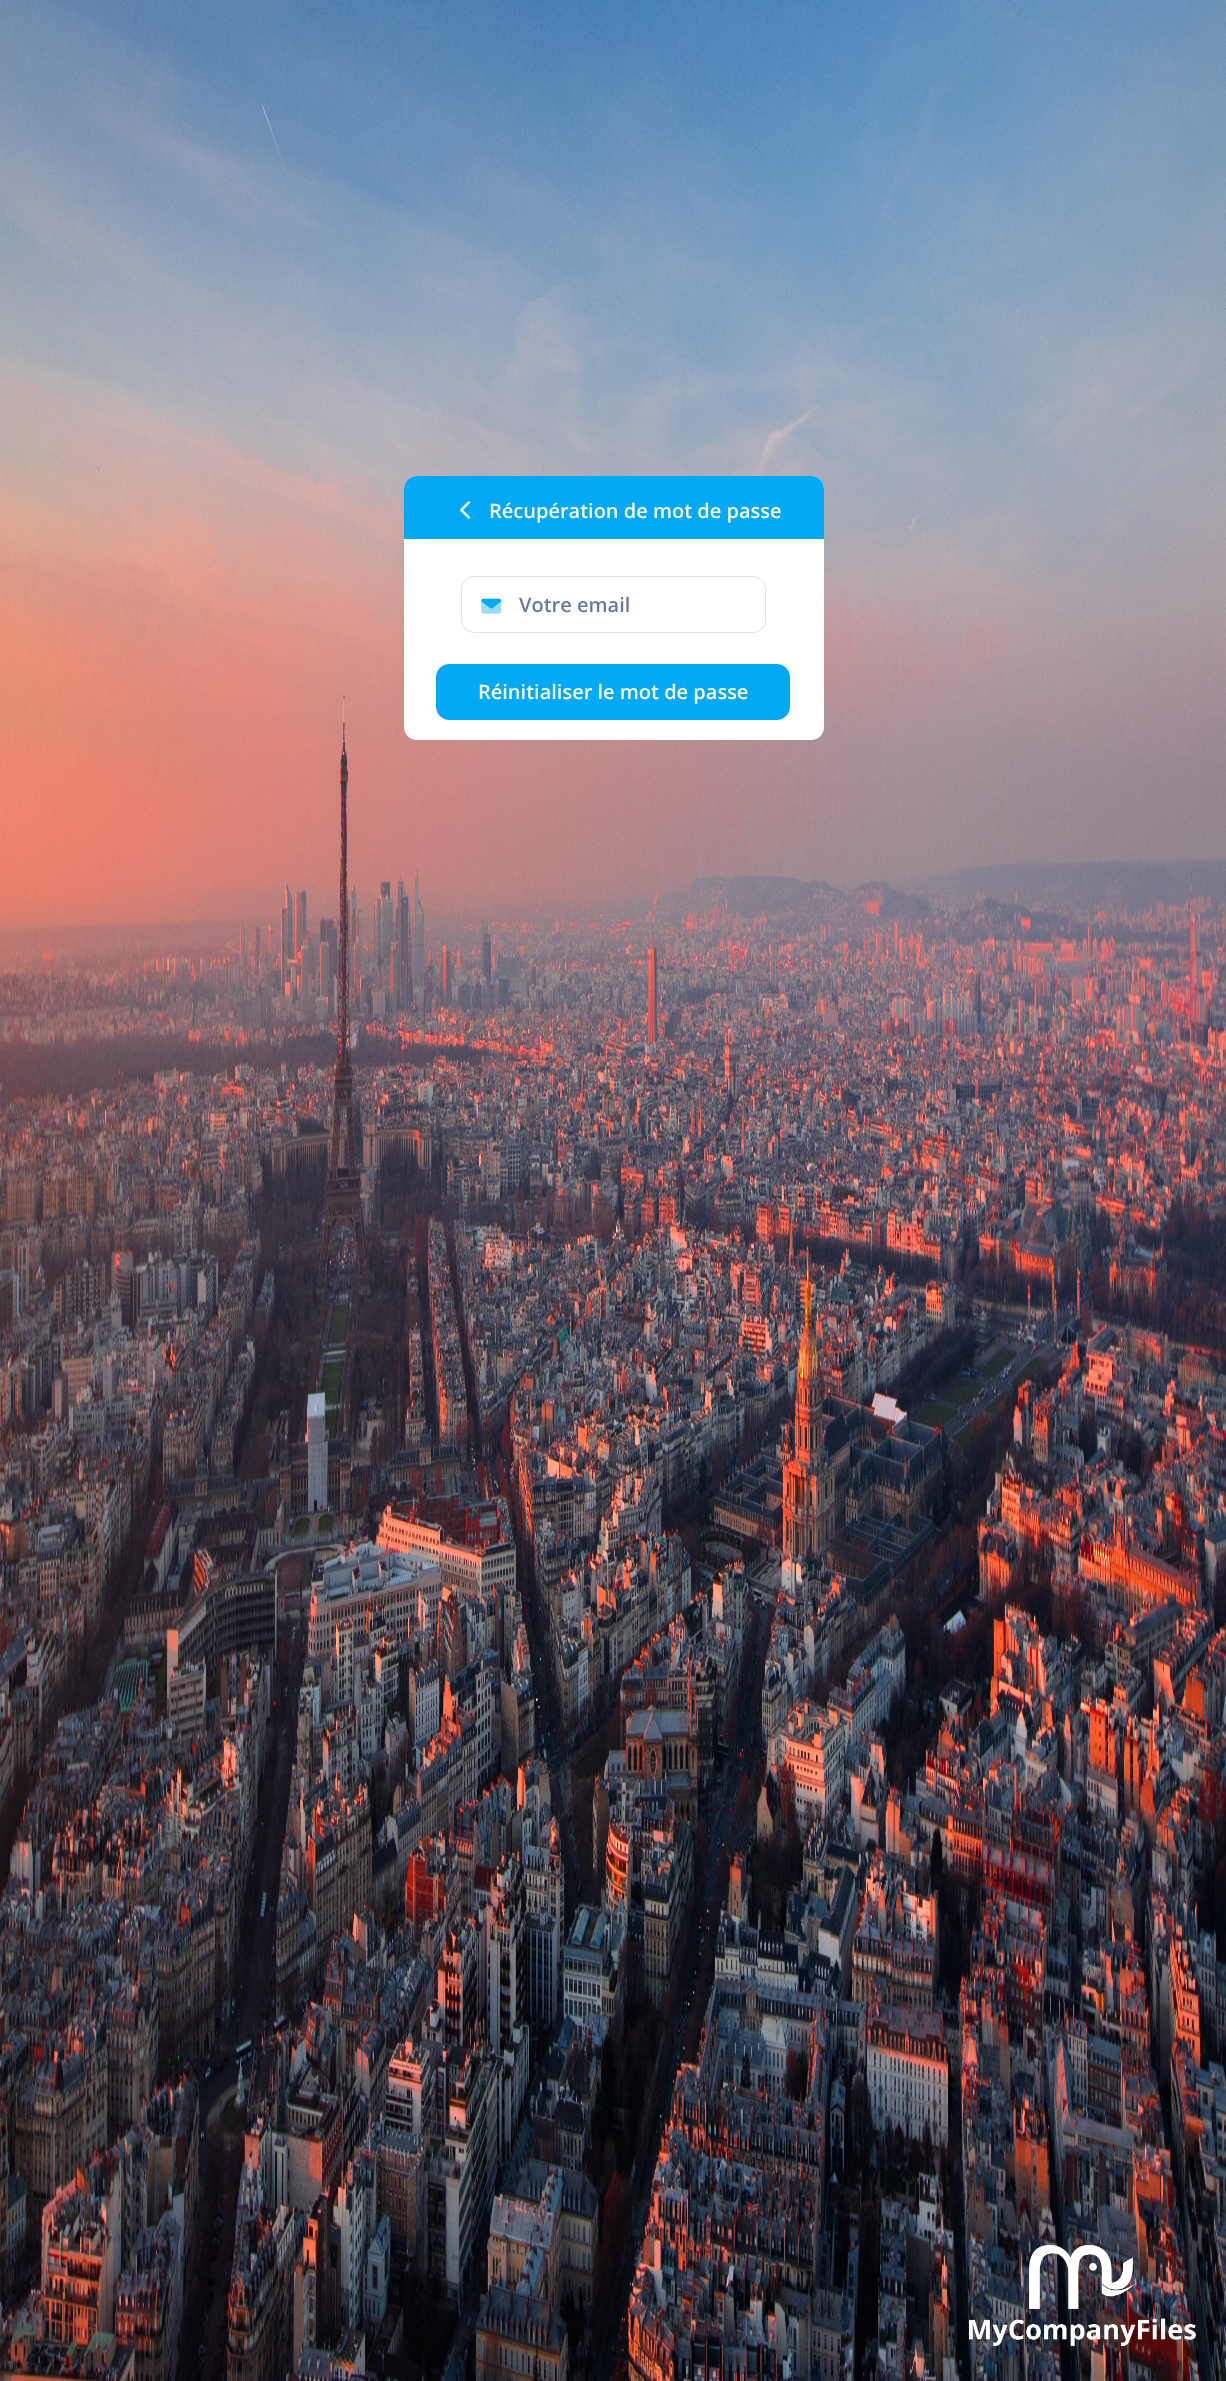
<!DOCTYPE html>
<meta charset="utf-8">
<style>body { margin: 0 } canvas { display: block }</style>
<canvas id="canvas" width="1226" height="2381"></canvas>
<img id="img1" src="images/1.png" hidden>
<img id="img2" src="images/2.png" hidden>
<img id="img3" src="images/3.png" hidden>
<img id="img4" src="images/4.png" hidden>
<img id="img5" src="images/5.png" hidden>
<script>
window.onload = function () {
    const canvas = document.getElementById('canvas');
    const context = canvas.getContext('2d');
    context.miterLimit = 4;
    context.fontKerning = 'normal';

    context.fillStyle = 'rgb(255, 255, 255)';
    context.fillRect(0, 0, 1226, 2381);
    context.drawImage(document.getElementById('img1'), 0, 0, 1226, 2381);
    context.beginPath();
    context.roundRect(404, 476, 420, 264, 13);
    context.fill();
    context.fillStyle = 'rgb(3, 169, 244)';
    context.beginPath();
    context.roundRect(404, 476, 420, 63, [13, 13, 0, 0]);
    context.fill();
    context.drawImage(document.getElementById('img2'), 460, 501, 10, 18);
    context.beginPath();
    context.roundRect(461.5, 576.5, 304, 56, 12.5);
    context.strokeStyle = 'rgb(222, 226, 230)';
    context.stroke();
    context.drawImage(document.getElementById('img3'), 481, 598, 21, 11);
    context.drawImage(document.getElementById('img4'), 481, 601, 21, 13);
    context.beginPath();
    context.roundRect(436.5, 664.5, 353, 55, 12.5);
    context.fill();
    context.strokeStyle = 'rgb(3, 169, 244)';
    context.stroke();
    context.drawImage(document.getElementById('img5'), 969, 2245, 227, 102);
    context.font = '600 20px Open Sans';
    context.fillStyle = 'rgb(255, 255, 255)';
    context.fillText('Récupération de mot de passe', 489, 518);
    context.fillStyle = 'rgb(101, 124, 158)';
    context.fillText('Votre email', 519, 612);
    context.fillStyle = 'rgb(255, 255, 255)';
    context.fillText('Réinitialiser le mot de passe', 478, 699);
};
</script>
